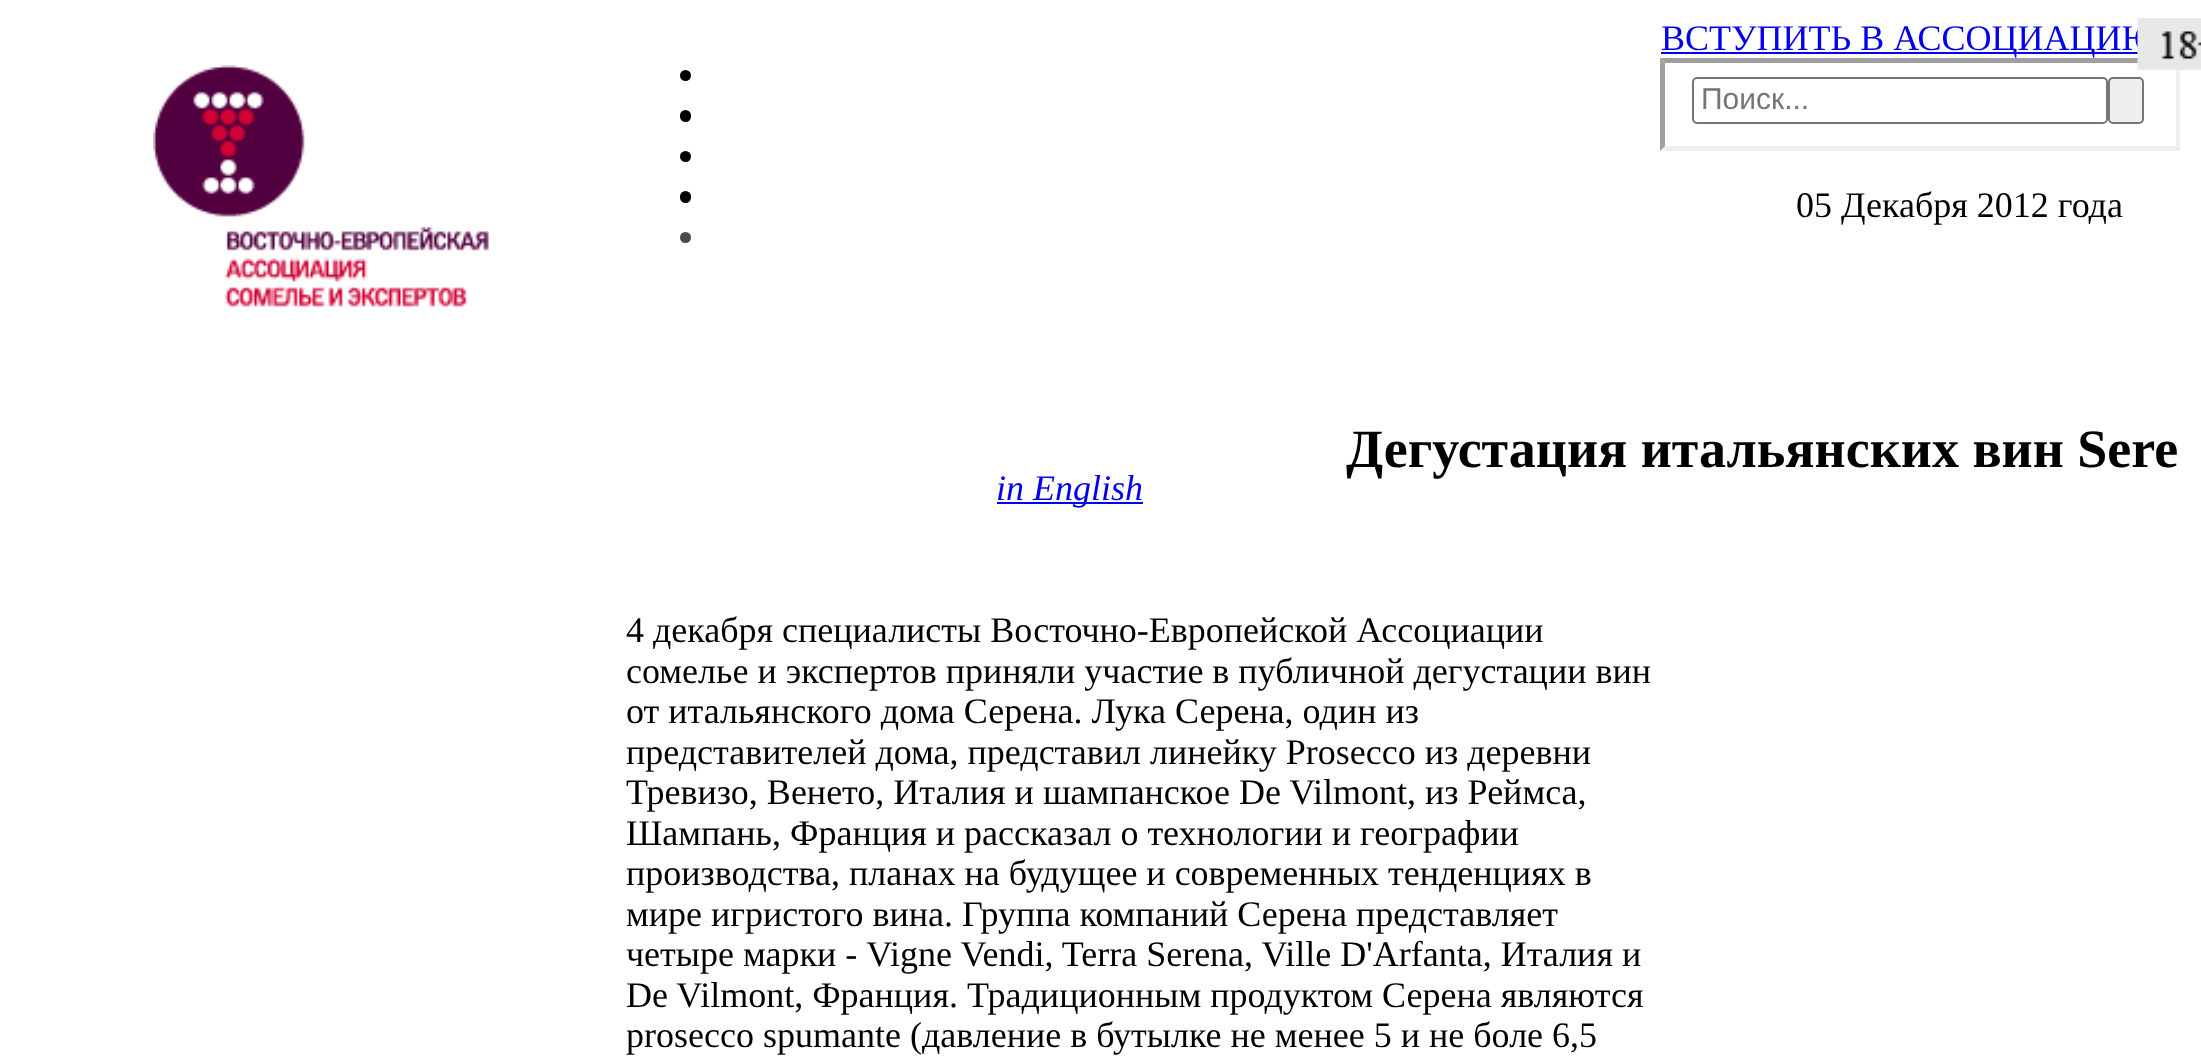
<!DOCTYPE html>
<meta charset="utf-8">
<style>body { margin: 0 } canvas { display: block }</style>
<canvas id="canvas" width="2201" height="1058"></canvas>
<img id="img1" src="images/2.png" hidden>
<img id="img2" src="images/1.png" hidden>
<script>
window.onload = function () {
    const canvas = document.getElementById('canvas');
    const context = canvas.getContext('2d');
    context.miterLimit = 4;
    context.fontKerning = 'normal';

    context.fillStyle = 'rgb(255, 255, 255)';
    context.fillRect(0, 0, 2201, 1058);
    context.fillStyle = 'rgb(0, 0, 238)';
    context.fillRect(1661, 52, 477, 2);
    context.drawImage(document.getElementById('img1'), 153, 65, 336, 242);
    context.fillStyle = 'rgb(0, 0, 0)';
    context.beginPath();
    context.arc(685.5, 75.5, 5.5, 0, 2 * Math.PI);
    context.fill();
    context.beginPath();
    context.roundRect(680, 110, 11, 12, 5.5);
    context.fill();
    context.beginPath();
    context.arc(685.5, 156.5, 5.5, 0, 2 * Math.PI);
    context.fill();
    context.beginPath();
    context.roundRect(680, 191, 11, 12, 5.5);
    context.fill();
    context.fillStyle = 'rgb(75, 75, 75)';
    context.beginPath();
    context.arc(685.5, 237.5, 5.5, 0, 2 * Math.PI);
    context.fill();
    context.fillStyle = 'rgb(159, 159, 159)';
    context.beginPath();
    context.moveTo(1660, 58);
    context.lineTo(2180, 58);
    context.lineTo(2176, 63);
    context.lineTo(1665, 63);
    context.closePath();
    context.fill();
    context.fillStyle = 'rgb(239, 239, 239)';
    context.beginPath();
    context.moveTo(2180, 58);
    context.lineTo(2180, 151);
    context.lineTo(2176, 146);
    context.lineTo(2176, 63);
    context.closePath();
    context.fill();
    context.beginPath();
    context.moveTo(2180, 151);
    context.lineTo(1660, 151);
    context.lineTo(1665, 146);
    context.lineTo(2176, 146);
    context.closePath();
    context.fill();
    context.fillStyle = 'rgb(159, 159, 159)';
    context.beginPath();
    context.moveTo(1660, 151);
    context.lineTo(1660, 58);
    context.lineTo(1665, 63);
    context.lineTo(1665, 146);
    context.closePath();
    context.fill();
    context.beginPath();
    context.roundRect(1693, 78, 414, 45, 4);
    context.strokeStyle = 'rgb(118, 118, 118)';
    context.lineWidth = 2;
    context.stroke();
    context.fillStyle = 'rgb(239, 239, 239)';
    context.beginPath();
    context.roundRect(2109, 78, 34, 45, 4);
    context.fill();
    context.stroke();
    context.fillStyle = 'rgb(0, 0, 238)';
    context.fillRect(997, 502, 146, 2);
    context.font = '36px Liberation Serif';
    context.fillText('ВСТУПИТЬ В АССОЦИАЦИЮ', 1661, 50);
    context.drawImage(document.getElementById('img2'), 2137, 18, 64, 52);
    context.font = '30px Liberation Sans';
    context.fillStyle = 'rgb(117, 117, 117)';
    context.fillText('Поиск...', 1701, 109);
    context.font = 'italic 36px Liberation Serif';
    context.fillStyle = 'rgb(0, 0, 238)';
    context.fillText('in English', 996, 500);
    context.font = '36px Liberation Serif';
    context.fillStyle = 'rgb(0, 0, 0)';
    context.fillText('05 Декабря 2012 года', 1796, 217);
    context.font = 'bold 54px Liberation Serif';
    context.fillText('Дегустация итальянских вин Sere', 1346, 467);
    context.font = '36px Liberation Serif';
    context.fillText('4 декабря специалисты Восточно-Европейской Ассоциации', 626, 642);
    context.fillText('сомелье и экспертов приняли участие в публичной дегустации вин', 626, 683);
    context.fillText('от итальянского дома Серена. Лука Серена, один из', 626, 723);
    context.fillText('представителей дома, представил линейку Prosecco из деревни', 626, 764);
    context.fillText('Тревизо, Венето, Италия и шампанское De Vilmont, из Реймса,', 626, 804);
    context.fillText('Шампань, Франция и рассказал о технологии и географии', 626, 845);
    context.fillText('производства, планах на будущее и современных тенденциях в', 626, 885);
    context.fillText('мире игристого вина. Группа компаний Серена представляет', 626, 926);
    context.fillText('четыре марки - Vigne Vendi, Terra Serena, Ville D\'Arfanta, Италия и', 626, 966);
    context.fillText('De Vilmont, Франция. Традиционным продуктом Серена являются', 626, 1007);
    context.fillText('prosecco spumante (давление в бутылке не менее 5 и не боле 6,5', 626, 1047);
};
</script>
